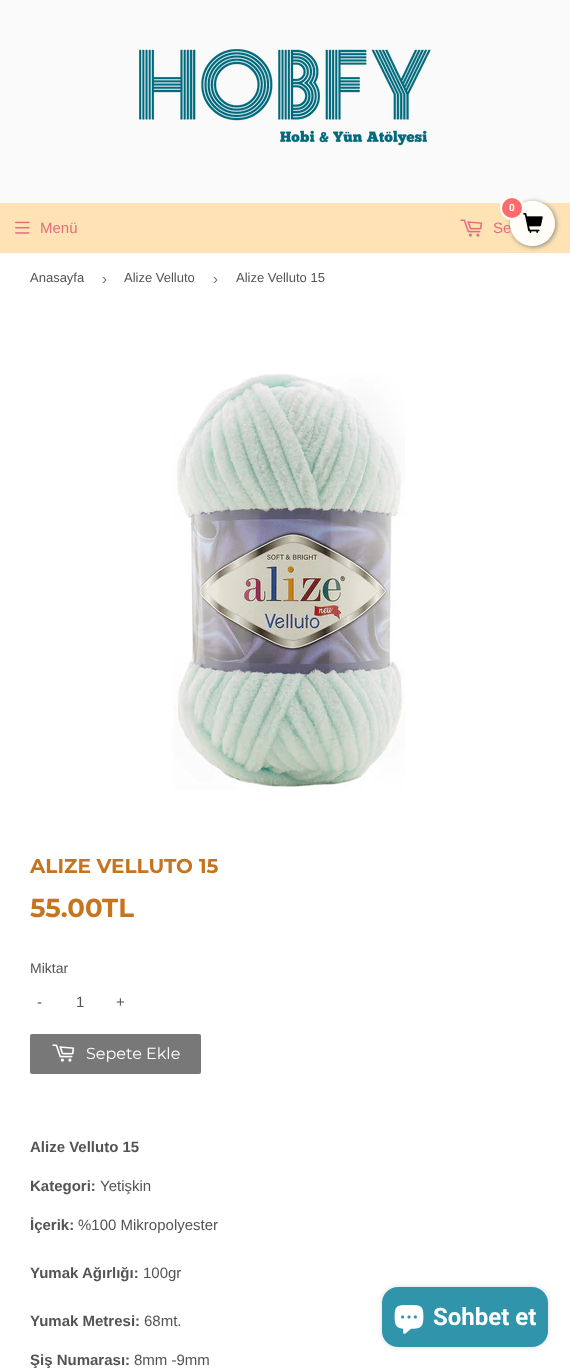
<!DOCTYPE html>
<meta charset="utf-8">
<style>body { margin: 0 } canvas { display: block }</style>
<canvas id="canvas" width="570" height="1368"></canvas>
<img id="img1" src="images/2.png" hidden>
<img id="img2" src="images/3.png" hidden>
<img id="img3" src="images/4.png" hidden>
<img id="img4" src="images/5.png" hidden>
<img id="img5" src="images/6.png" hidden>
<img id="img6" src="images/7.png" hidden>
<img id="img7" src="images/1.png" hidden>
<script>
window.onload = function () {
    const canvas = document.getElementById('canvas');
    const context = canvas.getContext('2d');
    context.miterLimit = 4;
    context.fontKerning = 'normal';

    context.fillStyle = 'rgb(255, 255, 255)';
    context.fillRect(0, 0, 570, 1368);
    context.fillStyle = 'rgb(250, 250, 250)';
    context.fillRect(0, 0, 570, 203);
    context.fillStyle = 'rgb(255, 227, 180)';
    context.fillRect(0, 203, 570, 50);
    context.save();
    context.beginPath();
    context.moveTo(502, 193);
    context.lineTo(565, 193);
    context.lineTo(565, 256);
    context.lineTo(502, 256);
    context.closePath();
    context.moveTo(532.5, 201);
    context.bezierCurveTo(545, 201, 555, 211, 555, 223.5);
    context.bezierCurveTo(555, 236, 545, 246, 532.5, 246);
    context.bezierCurveTo(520, 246, 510, 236, 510, 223.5);
    context.bezierCurveTo(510, 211, 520, 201, 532.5, 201);
    context.closePath();
    context.clip('evenodd');
    context.fillStyle = 'rgb(128, 128, 128)';
    context.filter = 'blur(2.5px)';
    context.beginPath();
    context.roundRect(511, 202, 45, 45, 22.5);
    context.fill();
    context.filter = 'none';
    context.restore();
    context.drawImage(document.getElementById('img1'), 139, 49, 292, 97);
    context.drawImage(document.getElementById('img2'), 15, 221, 15, 13);
    context.drawImage(document.getElementById('img3'), 460, 219, 23, 18);
    context.drawImage(document.getElementById('img4'), 173, 374, 232, 416);
    context.fillStyle = 'rgb(120, 120, 120)';
    context.beginPath();
    context.roundRect(30, 1034, 171, 40, 2);
    context.fill();
    context.drawImage(document.getElementById('img5'), 52, 1044, 23, 18);
    context.fillStyle = 'rgba(0, 0, 0, 0.15)';
    context.filter = 'blur(2.5px)';
    context.beginPath();
    context.roundRect(382, 1287, 166, 60, 16);
    context.fill();
    context.filter = 'none';
    context.fillStyle = 'rgb(48, 149, 171)';
    context.beginPath();
    context.roundRect(382, 1287, 166, 60, 16);
    context.fill();
    context.drawImage(document.getElementById('img6'), 394, 1305, 30, 29);
    context.font = '15px Liberation Sans';
    context.fillStyle = 'rgb(230, 109, 127)';
    context.fillText('Menü', 40, 233);
    context.fillText('Se', 493, 233);
    context.fillStyle = 'rgba(255, 255, 255, 0.9)';
    context.beginPath();
    context.arc(532.5, 223.5, 22.5, 0, 2 * Math.PI);
    context.fill();
    context.drawImage(document.getElementById('img7'), 523, 213, 20, 20);
    context.fillStyle = 'rgb(255, 107, 107)';
    context.beginPath();
    context.arc(512, 208, 11, 0, 2 * Math.PI);
    context.fill();
    context.strokeStyle = 'rgb(255, 255, 255)';
    context.lineWidth = 2;
    context.stroke();
    context.font = 'bold 10px Roboto';
    context.fillStyle = 'rgb(255, 255, 255)';
    context.fillText('0', 509, 211);
    context.font = '13px Liberation Sans';
    context.fillStyle = 'rgb(84, 84, 84)';
    context.fillText('Anasayfa', 30, 282);
    context.font = '15px Liberation Sans';
    context.fillStyle = 'rgb(118, 118, 118)';
    context.fillText('›', 102, 284);
    context.font = '13px Liberation Sans';
    context.fillStyle = 'rgb(84, 84, 84)';
    context.fillText('Alize Velluto', 124, 282);
    context.font = '15px Liberation Sans';
    context.fillStyle = 'rgb(118, 118, 118)';
    context.fillText('›', 213, 284);
    context.font = '13px Liberation Sans';
    context.fillStyle = 'rgb(84, 84, 84)';
    context.fillText('Alize Velluto 15', 236, 282);
    context.font = '100 20px Montserrat';
    context.fillStyle = 'rgb(198, 116, 30)';
    context.fillText('ALIZE VELLUTO 15', 30, 873);
    context.font = '100 26px Montserrat';
    context.fillText('55.00TL', 30, 917);
    context.font = '14px Liberation Sans';
    context.fillStyle = 'rgb(84, 84, 84)';
    context.fillText('Miktar', 30, 973);
    context.font = '15px Liberation Sans';
    context.fillText('-', 37, 1007);
    context.fillText('1', 76, 1007);
    context.fillText('+', 116, 1007);
    context.font = '16px Montserrat';
    context.fillStyle = 'rgb(255, 255, 255)';
    context.fillText('Sepete Ekle', 86, 1059);
    context.font = 'bold 15px Liberation Sans';
    context.fillStyle = 'rgb(84, 84, 84)';
    context.fillText('Alize Velluto 15', 30, 1152);
    context.fillText('Kategori:', 30, 1191);
    context.font = '15px Liberation Sans';
    context.fillText('Yetişkin', 100, 1191);
    context.font = 'bold 15px Liberation Sans';
    context.fillText('İçerik:', 30, 1230);
    context.font = '15px Liberation Sans';
    context.fillText('%100 Mikropolyester', 78, 1230);
    context.font = 'bold 15px Liberation Sans';
    context.fillText('Yumak Ağırlığı:', 30, 1278);
    context.font = '15px Liberation Sans';
    context.fillText('100gr', 143, 1278);
    context.font = 'bold 15px Liberation Sans';
    context.fillText('Yumak Metresi:', 30, 1326);
    context.font = '15px Liberation Sans';
    context.fillText('68mt.', 144, 1326);
    context.font = 'bold 15px Liberation Sans';
    context.fillText('Şiş Numarası:', 30, 1365);
    context.font = '15px Liberation Sans';
    context.fillText('8mm -9mm', 134, 1365);
    context.font = 'bold 24px Roboto';
    context.fillStyle = 'rgb(255, 255, 255)';
    context.fillText('Sohbet et', 433, 1325);
};
</script>
